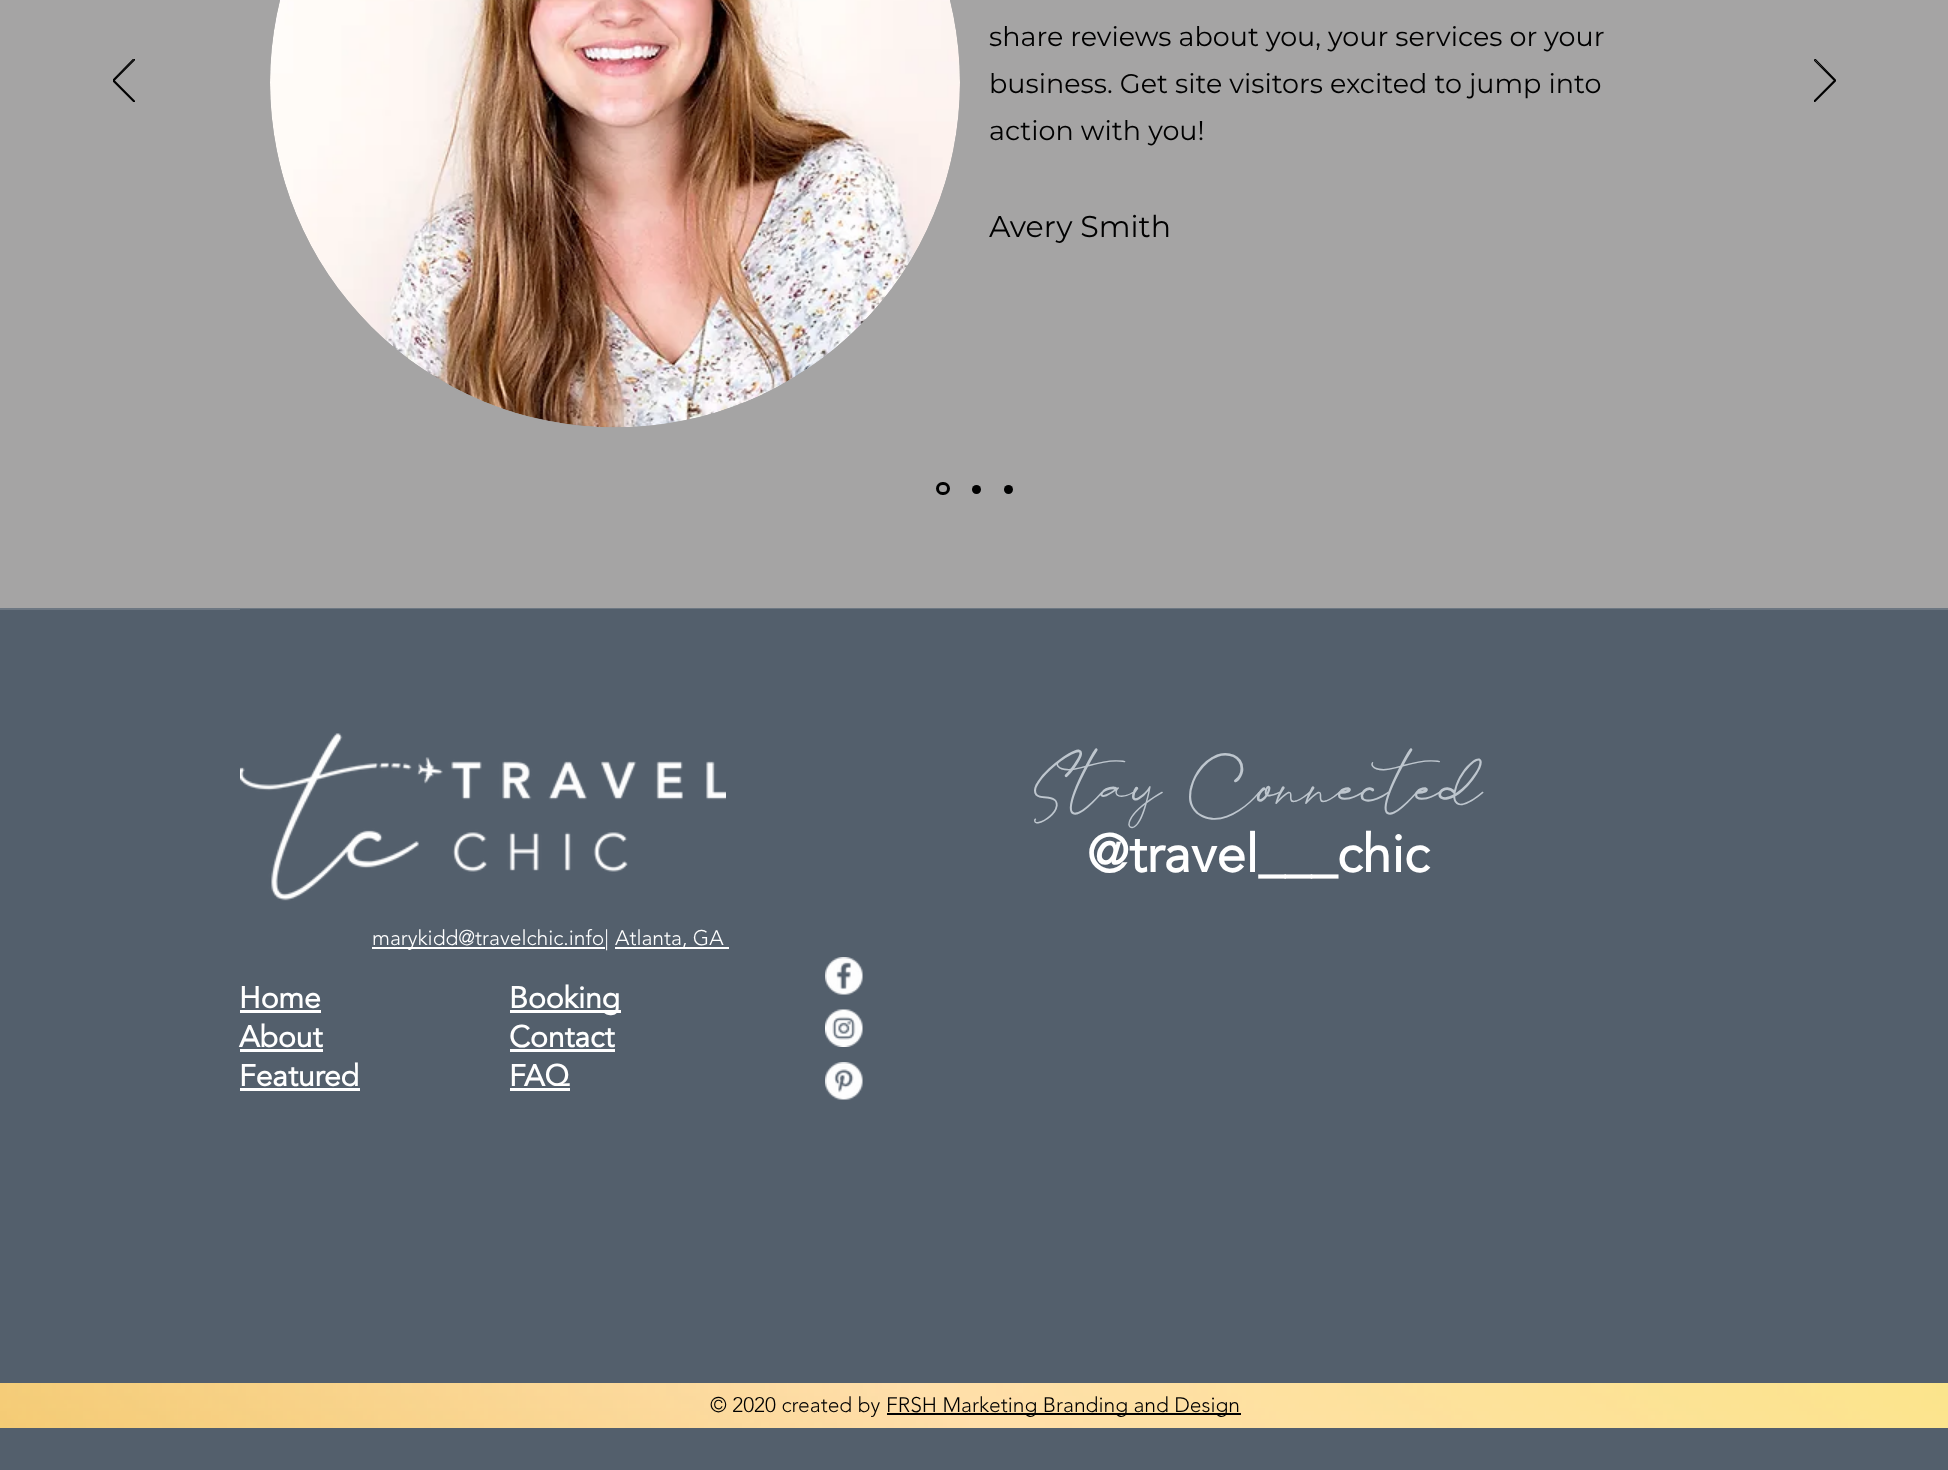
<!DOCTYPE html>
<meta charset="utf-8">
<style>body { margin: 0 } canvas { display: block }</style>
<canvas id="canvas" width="1948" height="1470"></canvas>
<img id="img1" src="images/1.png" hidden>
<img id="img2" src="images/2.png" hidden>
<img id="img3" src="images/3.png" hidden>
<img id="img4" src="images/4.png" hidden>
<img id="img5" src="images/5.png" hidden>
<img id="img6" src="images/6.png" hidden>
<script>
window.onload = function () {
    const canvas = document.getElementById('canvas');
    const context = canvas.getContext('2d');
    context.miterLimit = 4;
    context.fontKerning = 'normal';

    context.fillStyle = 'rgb(165, 164, 164)';
    context.fillRect(0, 0, 1948, 1470);
    context.save();
    context.beginPath();
    context.rect(113, 59, 22, 43);
    context.clip();
    context.beginPath();
    context.moveTo(134, 102);
    context.lineTo(112.5, 80.5);
    context.lineTo(134, 58.5);
    context.lineTo(135, 59.5);
    context.lineTo(114, 80.5);
    context.lineTo(135, 101.5);
    context.closePath();
    context.strokeStyle = 'rgb(0, 0, 0)';
    context.lineWidth = 1.1;
    context.stroke();
    context.restore();
    context.drawImage(document.getElementById('img1'), 270, 0, 690, 428);
    context.save();
    context.beginPath();
    context.rect(1814, 59, 22, 43);
    context.clip();
    context.beginPath();
    context.moveTo(1814.5, 102);
    context.lineTo(1836, 80.5);
    context.lineTo(1814.5, 58.5);
    context.lineTo(1813.5, 59.5);
    context.lineTo(1834.5, 80.5);
    context.lineTo(1813.5, 101.5);
    context.closePath();
    context.strokeStyle = 'rgb(0, 0, 0)';
    context.lineWidth = 1.1;
    context.stroke();
    context.restore();
    context.beginPath();
    context.roundRect(937.5, 483.5, 11, 10, 5);
    context.strokeStyle = 'rgb(0, 0, 0)';
    context.lineWidth = 3;
    context.stroke();
    context.fillStyle = 'rgb(0, 0, 0)';
    context.beginPath();
    context.arc(976.5, 489.5, 4.5, 0, 2 * Math.PI);
    context.fill();
    context.beginPath();
    context.arc(1008.5, 489.5, 4.5, 0, 2 * Math.PI);
    context.fill();
    context.fillStyle = 'rgb(83, 95, 108)';
    context.fillRect(0, 610, 1948, 860);
    context.fillStyle = 'rgb(109, 119, 130)';
    context.fillRect(0, 608, 1948, 2);
    context.fillStyle = 'rgb(83, 95, 108)';
    context.fillRect(240, 609, 1470, 1);
    context.drawImage(document.getElementById('img2'), 240, 733, 486, 168);
    context.fillStyle = 'rgb(255, 255, 255)';
    context.fillRect(372, 947, 233, 2);
    context.fillRect(615, 947, 114, 2);
    context.fillRect(240, 1010, 81, 3);
    context.fillRect(240, 1049, 83, 3);
    context.fillRect(240, 1088, 120, 3);
    context.fillRect(510, 1010, 111, 3);
    context.fillRect(510, 1049, 105, 3);
    context.fillRect(510, 1088, 60, 3);
    context.drawImage(document.getElementById('img3'), 825, 957, 38, 38);
    context.drawImage(document.getElementById('img4'), 825, 1009, 38, 38);
    context.drawImage(document.getElementById('img5'), 825, 1062, 38, 38);
    context.drawImage(document.getElementById('img6'), 0, 1383, 1948, 45);
    context.fillStyle = 'rgb(0, 0, 0)';
    context.fillRect(887, 1413, 354, 2);
    context.font = '27px Montserrat';
    context.fillText('share reviews about you, your services or your', 989, 46);
    context.fillText('business. Get site visitors excited to jump into', 989, 93);
    context.fillText('action with you!', 989, 140);
    context.font = '30px Montserrat';
    context.fillText('Avery Smith', 989, 237);
    context.font = '91.5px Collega';
    context.fillStyle = 'rgb(190, 198, 206)';
    context.fillText('Stay Connected', 1034, 815);
    context.font = 'bold 52.5px Avenir';
    context.fillStyle = 'rgb(255, 255, 255)';
    context.fillText('@travel___chic', 1087, 872);
    context.font = '300 21px "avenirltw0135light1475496"';
    context.fillText('marykidd@travelchic.info|', 372, 945);
    context.fillText('Atlanta, GA', 615, 945);
    context.font = 'bold 30px Avenir';
    context.fillText('Home', 239, 1008);
    context.fillText('About', 239, 1047);
    context.fillText('Featured', 239, 1086);
    context.fillText('Booking', 509, 1008);
    context.fillText('Contact', 509, 1047);
    context.fillText('FAQ', 509, 1086);
    context.font = '300 21px "avenirltw0135light1475496"';
    context.fillStyle = 'rgb(0, 0, 0)';
    context.fillText('© 2020 created by', 710, 1412);
    context.fillText('FRSH Marketing Branding and Design', 886, 1412);
};
</script>
